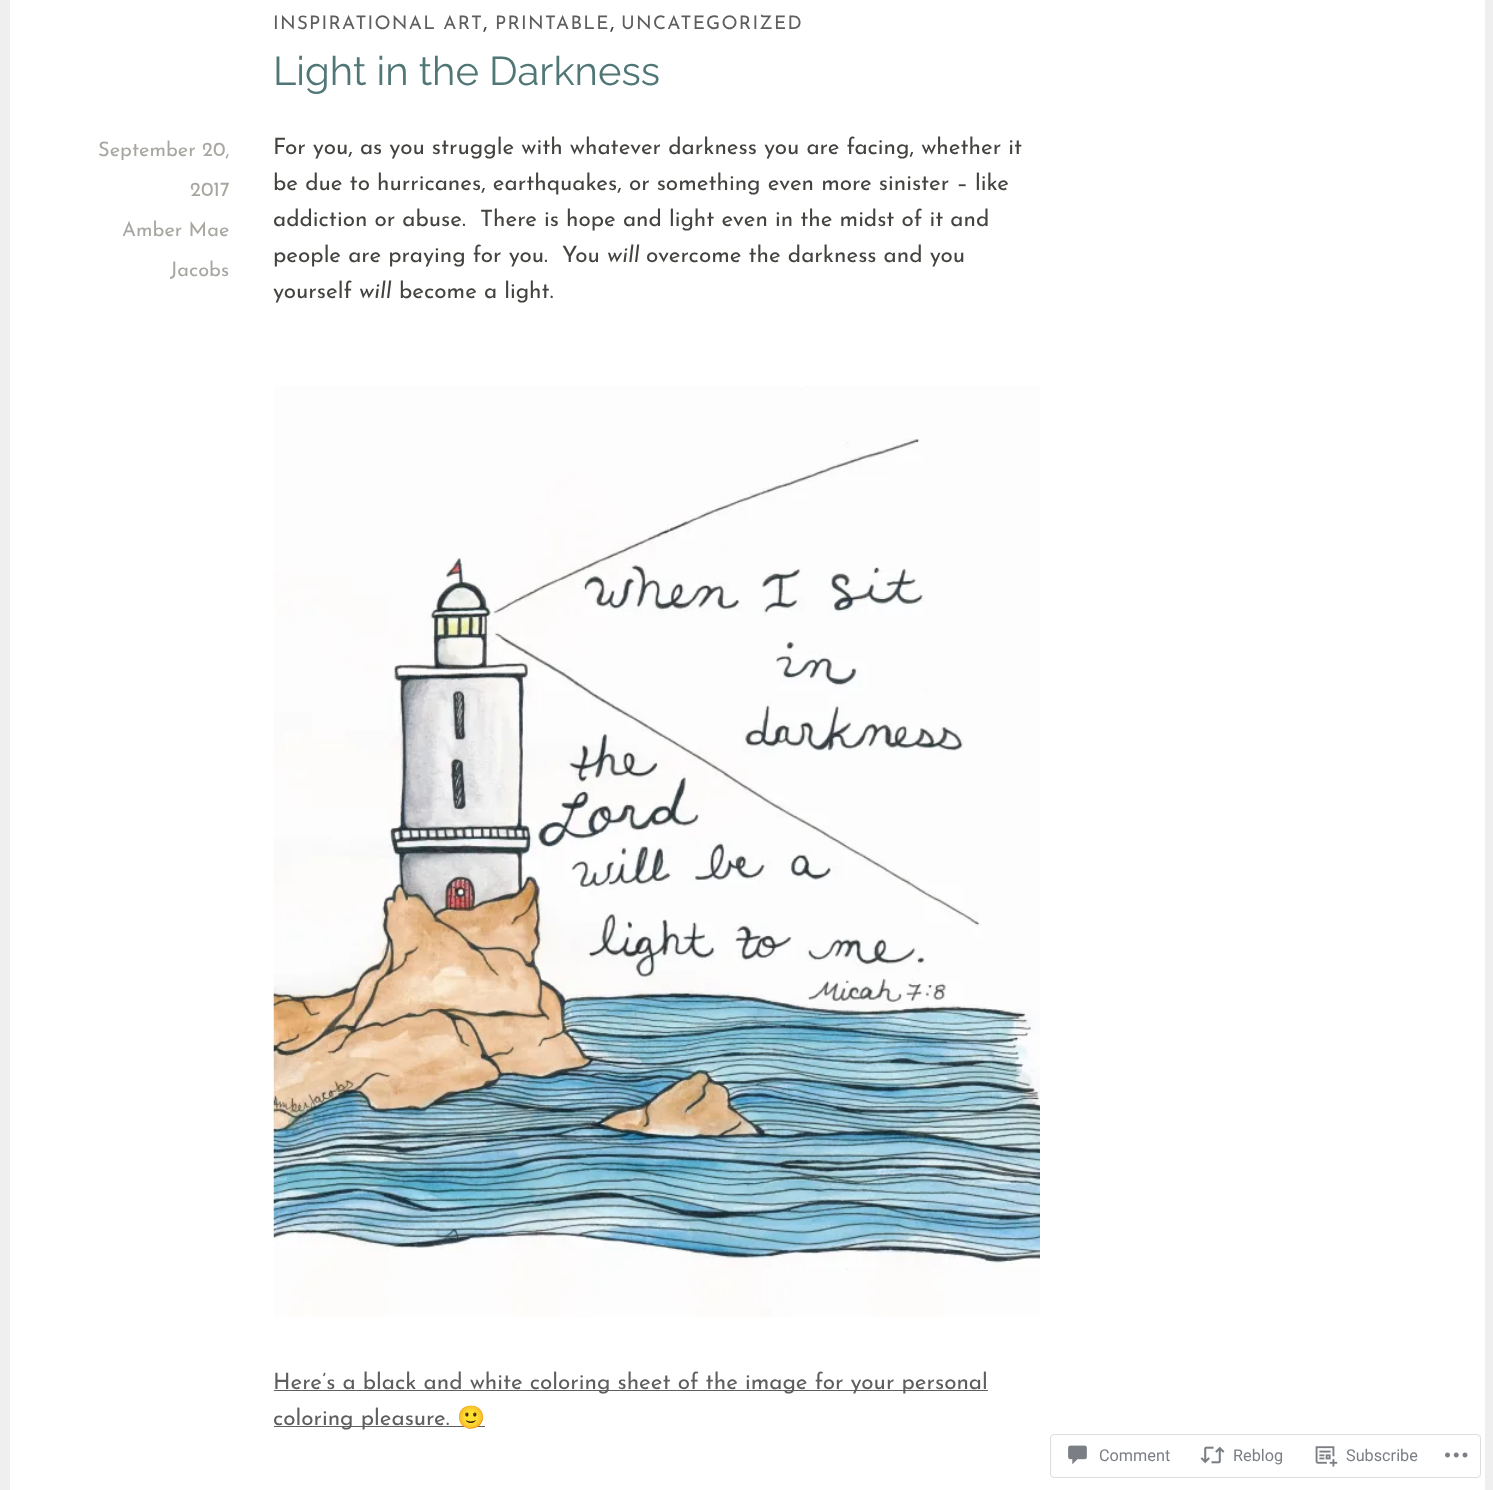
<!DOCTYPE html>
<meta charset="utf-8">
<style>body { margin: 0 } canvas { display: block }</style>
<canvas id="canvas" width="1493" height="1490"></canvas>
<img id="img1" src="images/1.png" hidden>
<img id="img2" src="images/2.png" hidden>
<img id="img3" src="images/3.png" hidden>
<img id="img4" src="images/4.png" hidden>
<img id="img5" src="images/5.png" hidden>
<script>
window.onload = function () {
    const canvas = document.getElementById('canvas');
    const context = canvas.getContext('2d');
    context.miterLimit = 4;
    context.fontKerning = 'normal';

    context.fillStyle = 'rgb(239, 239, 239)';
    context.fillRect(0, 0, 1493, 1490);
    context.fillStyle = 'rgb(255, 255, 255)';
    context.fillRect(10, 0, 1475, 1490);
    context.drawImage(document.getElementById('img1'), 273, 386, 767, 931);
    context.fillStyle = 'rgb(94, 94, 94)';
    context.fillRect(274, 1390, 714, 1);
    context.fillRect(274, 1426, 211, 1);
    context.beginPath();
    context.roundRect(1050.5, 1434.5, 430, 43, 3.5);
    context.strokeStyle = 'rgb(221, 221, 223)';
    context.stroke();
    context.drawImage(document.getElementById('img2'), 1068, 1445, 19, 20);
    context.drawImage(document.getElementById('img3'), 1200, 1446, 25, 18);
    context.drawImage(document.getElementById('img4'), 1315, 1446, 23, 21);
    context.drawImage(document.getElementById('img5'), 1445, 1452, 23, 6);
    context.letterSpacing = '1.25px';
    context.font = '18.75px Josefin Sans';
    context.fillText('INSPIRATIONAL ART', 273, 29);
    context.letterSpacing = '0px';
    context.font = '22.5px Josefin Sans';
    context.fillStyle = 'rgb(68, 67, 64)';
    context.fillText(',', 483, 29);
    context.letterSpacing = '1.25px';
    context.font = '18.75px Josefin Sans';
    context.fillStyle = 'rgb(94, 94, 94)';
    context.fillText('PRINTABLE', 495, 29);
    context.letterSpacing = '0px';
    context.font = '22.5px Josefin Sans';
    context.fillStyle = 'rgb(68, 67, 64)';
    context.fillText(',', 610, 29);
    context.letterSpacing = '1.25px';
    context.font = '18.75px Josefin Sans';
    context.fillStyle = 'rgb(94, 94, 94)';
    context.fillText('UNCATEGORIZED', 621, 29);
    context.letterSpacing = '0px';
    context.font = '100 40px Raleway';
    context.fillStyle = 'rgb(80, 118, 118)';
    context.fillText('Light in the Darkness', 273, 85);
    context.font = '20px Josefin Sans';
    context.fillStyle = 'rgb(168, 166, 161)';
    context.fillText('September 20,', 98, 156);
    context.fillText('2017', 190, 196);
    context.fillText('Amber Mae', 122, 236);
    context.fillText('Jacobs', 170, 276);
    context.font = '22.5px Josefin Sans';
    context.fillStyle = 'rgb(68, 67, 64)';
    context.fillText('For you, as you struggle with whatever darkness you are facing, whether it', 273, 154);
    context.fillText('be due to hurricanes, earthquakes, or something even more sinister – like', 273, 190);
    context.fillText('addiction or abuse.  There is hope and light even in the midst of it and', 273, 226);
    context.fillText('people are praying for you.  You', 273, 262);
    context.font = 'italic 22.5px Josefin Sans';
    context.fillText('will', 607, 262);
    context.font = '22.5px Josefin Sans';
    context.fillText('overcome the darkness and you', 646, 262);
    context.fillText('yourself', 273, 298);
    context.font = 'italic 22.5px Josefin Sans';
    context.fillText('will', 359, 298);
    context.font = '22.5px Josefin Sans';
    context.fillText('become a light.', 399, 298);
    context.fillStyle = 'rgb(94, 94, 94)';
    context.fillText('Here’s a black and white coloring sheet of the image for your personal', 273, 1389);
    context.fillText('coloring pleasure.', 273, 1425);
    context.font = '22.5px Noto Color Emoji';
    context.fillText('🙂', 457, 1425);
    context.font = '16.25px Roboto';
    context.fillStyle = 'rgb(123, 127, 133)';
    context.fillText('Comment', 1099, 1461);
    context.fillText('Reblog', 1233, 1461);
    context.fillText('Subscribe', 1346, 1461);
};
</script>
